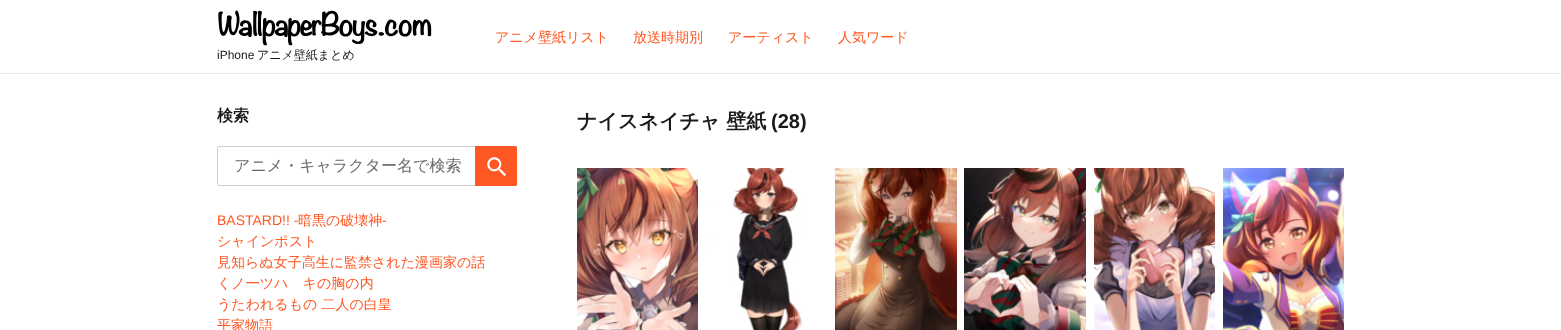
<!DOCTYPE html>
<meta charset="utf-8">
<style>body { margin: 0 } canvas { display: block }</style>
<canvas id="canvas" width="1561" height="330"></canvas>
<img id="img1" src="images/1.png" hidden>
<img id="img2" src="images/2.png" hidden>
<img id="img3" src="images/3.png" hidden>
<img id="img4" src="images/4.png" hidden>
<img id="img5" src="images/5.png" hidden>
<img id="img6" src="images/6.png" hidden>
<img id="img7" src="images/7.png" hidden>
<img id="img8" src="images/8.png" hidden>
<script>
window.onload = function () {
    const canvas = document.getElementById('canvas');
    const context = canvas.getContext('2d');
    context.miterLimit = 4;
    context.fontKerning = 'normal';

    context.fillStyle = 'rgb(255, 255, 255)';
    context.fillRect(0, 0, 1561, 330);
    context.fillStyle = 'rgb(234, 234, 234)';
    context.fillRect(0, 73, 1561, 1);
    context.drawImage(document.getElementById('img1'), 218, 10, 214, 36);
    context.beginPath();
    context.roundRect(217.5, 146.5, 299, 39, [1.5, 0, 0, 1.5]);
    context.strokeStyle = 'rgb(209, 209, 209)';
    context.stroke();
    context.fillStyle = 'rgb(255, 87, 34)';
    context.beginPath();
    context.roundRect(475, 146, 42, 40, [0, 2, 2, 0]);
    context.fill();
    context.drawImage(document.getElementById('img2'), 487, 157, 20, 20);
    context.drawImage(document.getElementById('img3'), 577, 168, 121, 162);
    context.drawImage(document.getElementById('img4'), 708, 168, 95, 162);
    context.drawImage(document.getElementById('img5'), 835, 168, 122, 162);
    context.drawImage(document.getElementById('img6'), 964, 168, 122, 162);
    context.drawImage(document.getElementById('img7'), 1094, 168, 121, 162);
    context.drawImage(document.getElementById('img8'), 1223, 168, 121, 162);
    context.font = '500 14px WenQuanYi Zen Hei';
    context.fillText('アニメ壁紙リスト', 495, 42);
    context.fillText('放送時期別', 633, 42);
    context.fillText('アーティスト', 728, 42);
    context.fillText('人気ワード', 838, 42);
    context.font = '12px Liberation Sans';
    context.fillStyle = 'rgb(26, 26, 26)';
    context.fillText('iPhone', 217, 59);
    context.font = '500 12px WenQuanYi Zen Hei';
    context.fillText('アニメ壁紙まとめ', 257, 59);
    context.font = 'bold 16px WenQuanYi Zen Hei';
    context.fillText('検索', 217, 121);
    context.font = '500 16px WenQuanYi Zen Hei';
    context.fillStyle = 'rgb(104, 104, 104)';
    context.fillText('アニメ・キャラクター名で検索', 234, 171);
    context.font = '14px Liberation Sans';
    context.fillStyle = 'rgb(255, 87, 34)';
    context.fillText('BASTARD!! -', 217, 225);
    context.font = '500 14px WenQuanYi Zen Hei';
    context.fillText('暗黒の破壊神', 298, 225);
    context.font = '14px Liberation Sans';
    context.fillText('-', 382, 225);
    context.font = '500 14px WenQuanYi Zen Hei';
    context.fillText('シャインポスト', 217, 246);
    context.fillText('見知らぬ女子高生に監禁された漫画家の話', 217, 267);
    context.fillText('くノ一ツバキの胸の内', 217, 288);
    context.fillText('うたわれるもの 二人の白皇', 217, 309);
    context.fillText('平家物語', 217, 330);
    context.font = 'bold 20px WenQuanYi Zen Hei';
    context.fillStyle = 'rgb(26, 26, 26)';
    context.fillText('ナイスネイチャ 壁紙', 577, 128);
    context.font = 'bold 20px Liberation Sans';
    context.fillText('(28)', 771, 128);
};
</script>
